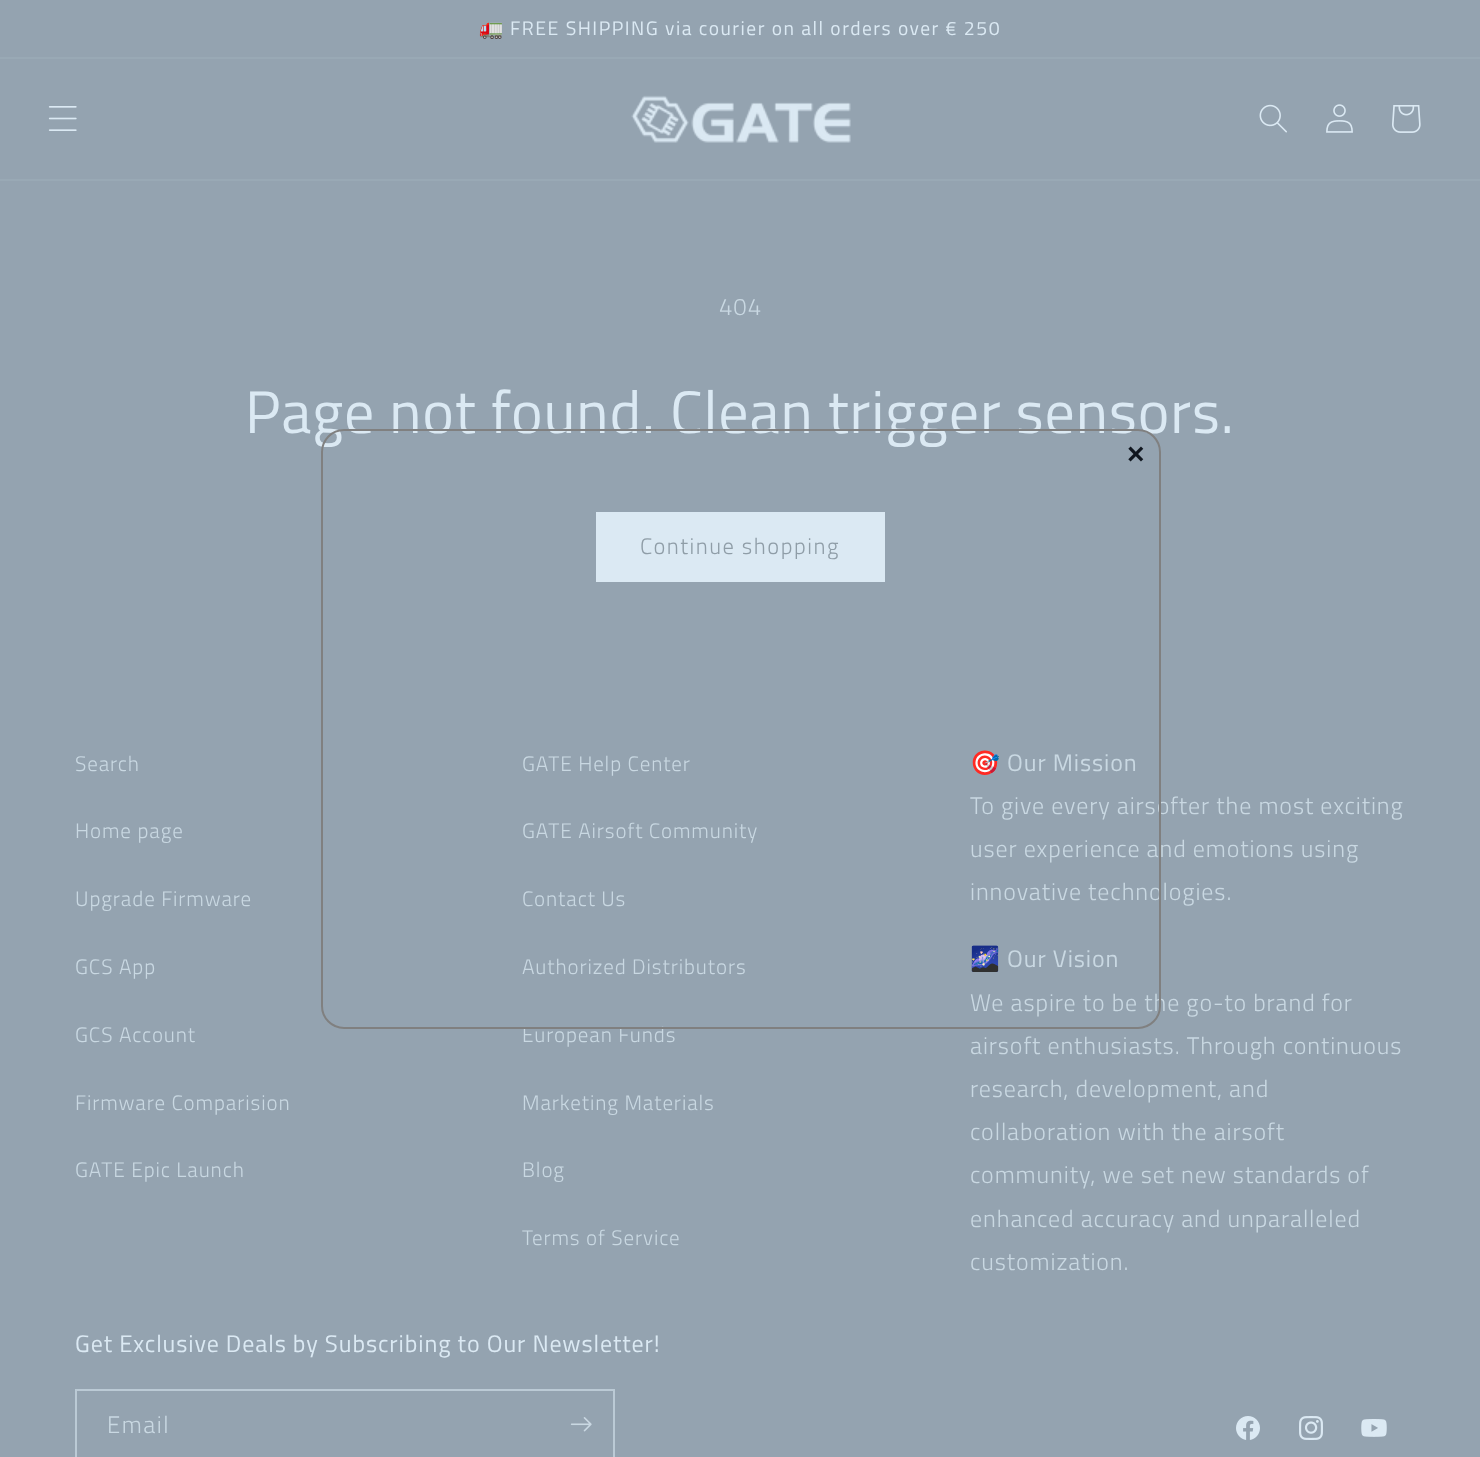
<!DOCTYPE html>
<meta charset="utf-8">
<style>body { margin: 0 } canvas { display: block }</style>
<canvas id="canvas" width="1480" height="1457"></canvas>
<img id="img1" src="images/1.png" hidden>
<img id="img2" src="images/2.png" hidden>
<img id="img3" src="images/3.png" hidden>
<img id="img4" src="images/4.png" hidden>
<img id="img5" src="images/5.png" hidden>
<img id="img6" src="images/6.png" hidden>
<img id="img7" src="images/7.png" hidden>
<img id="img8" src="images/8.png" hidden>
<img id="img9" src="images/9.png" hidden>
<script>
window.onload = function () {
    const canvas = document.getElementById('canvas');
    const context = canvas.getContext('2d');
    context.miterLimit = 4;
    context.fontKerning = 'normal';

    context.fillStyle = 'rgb(148, 163, 176)';
    context.fillRect(0, 0, 1480, 1457);
    context.fillStyle = 'rgb(153, 169, 181)';
    context.fillRect(0, 57, 1480, 2);
    context.fillRect(0, 179, 1480, 2);
    context.drawImage(document.getElementById('img1'), 48, 106, 29, 25);
    context.drawImage(document.getElementById('img2'), 631, 95, 220, 48);
    context.drawImage(document.getElementById('img3'), 1259, 104, 28, 29);
    context.drawImage(document.getElementById('img4'), 1326, 104, 27, 29);
    context.drawImage(document.getElementById('img5'), 1392, 105, 29, 28);
    context.fillStyle = 'rgb(219, 233, 243)';
    context.fillRect(596, 512, 289, 70);
    context.strokeStyle = 'rgb(187, 202, 213)';
    context.lineWidth = 2;
    context.strokeRect(76, 1390, 538, 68);
    context.drawImage(document.getElementById('img6'), 570, 1417, 22, 15);
    context.drawImage(document.getElementById('img7'), 1236, 1416, 24, 24);
    context.drawImage(document.getElementById('img8'), 1299, 1416, 24, 24);
    context.drawImage(document.getElementById('img9'), 1361, 1419, 26, 18);
    context.letterSpacing = '1.5px';
    context.font = '19.5px Noto Color Emoji';
    context.fillText('🚛', 479, 35);
    context.font = '19.5px Titillium Web';
    context.fillText('FREE SHIPPING via courier on all orders over € 250', 510, 35);
    context.letterSpacing = '0.9px';
    context.font = '300 24px Titillium Web';
    context.fillStyle = 'rgb(201, 216, 226)';
    context.fillText('404', 719, 315);
    context.font = '60px Titillium Web';
    context.fillStyle = 'rgb(219, 233, 243)';
    context.fillText('Page not found. Clean trigger sensors.', 245, 433);
    context.letterSpacing = '1.5px';
    context.font = '300 22.5px Titillium Web';
    context.fillStyle = 'rgb(143, 157, 167)';
    context.fillText('Continue shopping', 640, 554);
    context.letterSpacing = '0.9px';
    context.font = '300 21px Titillium Web';
    context.fillStyle = 'rgb(201, 216, 226)';
    context.fillText('Search', 75, 771);
    context.fillText('Home page', 75, 838);
    context.fillText('Upgrade Firmware', 75, 906);
    context.fillText('GCS App', 75, 974);
    context.fillText('GCS Account', 75, 1042);
    context.fillText('Firmware Comparision', 75, 1110);
    context.fillText('GATE Epic Launch', 75, 1177);
    context.fillText('GATE Help Center', 522, 771);
    context.fillText('GATE Airsoft Community', 522, 838);
    context.fillText('Contact Us', 522, 906);
    context.fillText('Authorized Distributors', 522, 974);
    context.fillText('European Funds', 522, 1042);
    context.fillText('Marketing Materials', 522, 1110);
    context.fillText('Blog', 522, 1177);
    context.fillText('Terms of Service', 522, 1245);
    context.font = '24px Noto Color Emoji';
    context.fillText('🎯', 970, 771);
    context.font = '24px Titillium Web';
    context.fillText('Our Mission', 1007, 771);
    context.font = '300 24px Titillium Web';
    context.fillText('To give every airsofter the most exciting', 970, 814);
    context.fillText('user experience and emotions using', 970, 857);
    context.fillText('innovative technologies.', 970, 900);
    context.font = '24px Noto Color Emoji';
    context.fillText('🌌', 970, 967);
    context.font = '24px Titillium Web';
    context.fillText('Our Vision', 1007, 967);
    context.font = '300 24px Titillium Web';
    context.fillText('We aspire to be the go-to brand for', 970, 1011);
    context.beginPath();
    context.roundRect(322, 430, 838, 598, 22);
    context.strokeStyle = 'rgb(128, 128, 128)';
    context.stroke();
    context.font = 'bold 30px Liberation Sans';
    context.fillStyle = 'rgb(16, 22, 31)';
    context.fillText('×', 1127, 464);
    context.font = '300 24px Titillium Web';
    context.fillStyle = 'rgb(201, 216, 226)';
    context.fillText('airsoft enthusiasts. Through continuous', 970, 1054);
    context.fillText('research, development, and', 970, 1097);
    context.fillText('collaboration with the airsoft', 970, 1140);
    context.fillText('community, we set new standards of', 970, 1183);
    context.fillText('enhanced accuracy and unparalleled', 970, 1227);
    context.fillText('customization.', 970, 1270);
    context.font = '24px Titillium Web';
    context.fillStyle = 'rgb(219, 233, 243)';
    context.fillText('Get Exclusive Deals by Subscribing to Our Newsletter!', 75, 1352);
    context.letterSpacing = '1.5px';
    context.font = '300 24px Titillium Web';
    context.fillStyle = 'rgb(201, 216, 226)';
    context.fillText('Email', 107, 1433);
};
</script>
